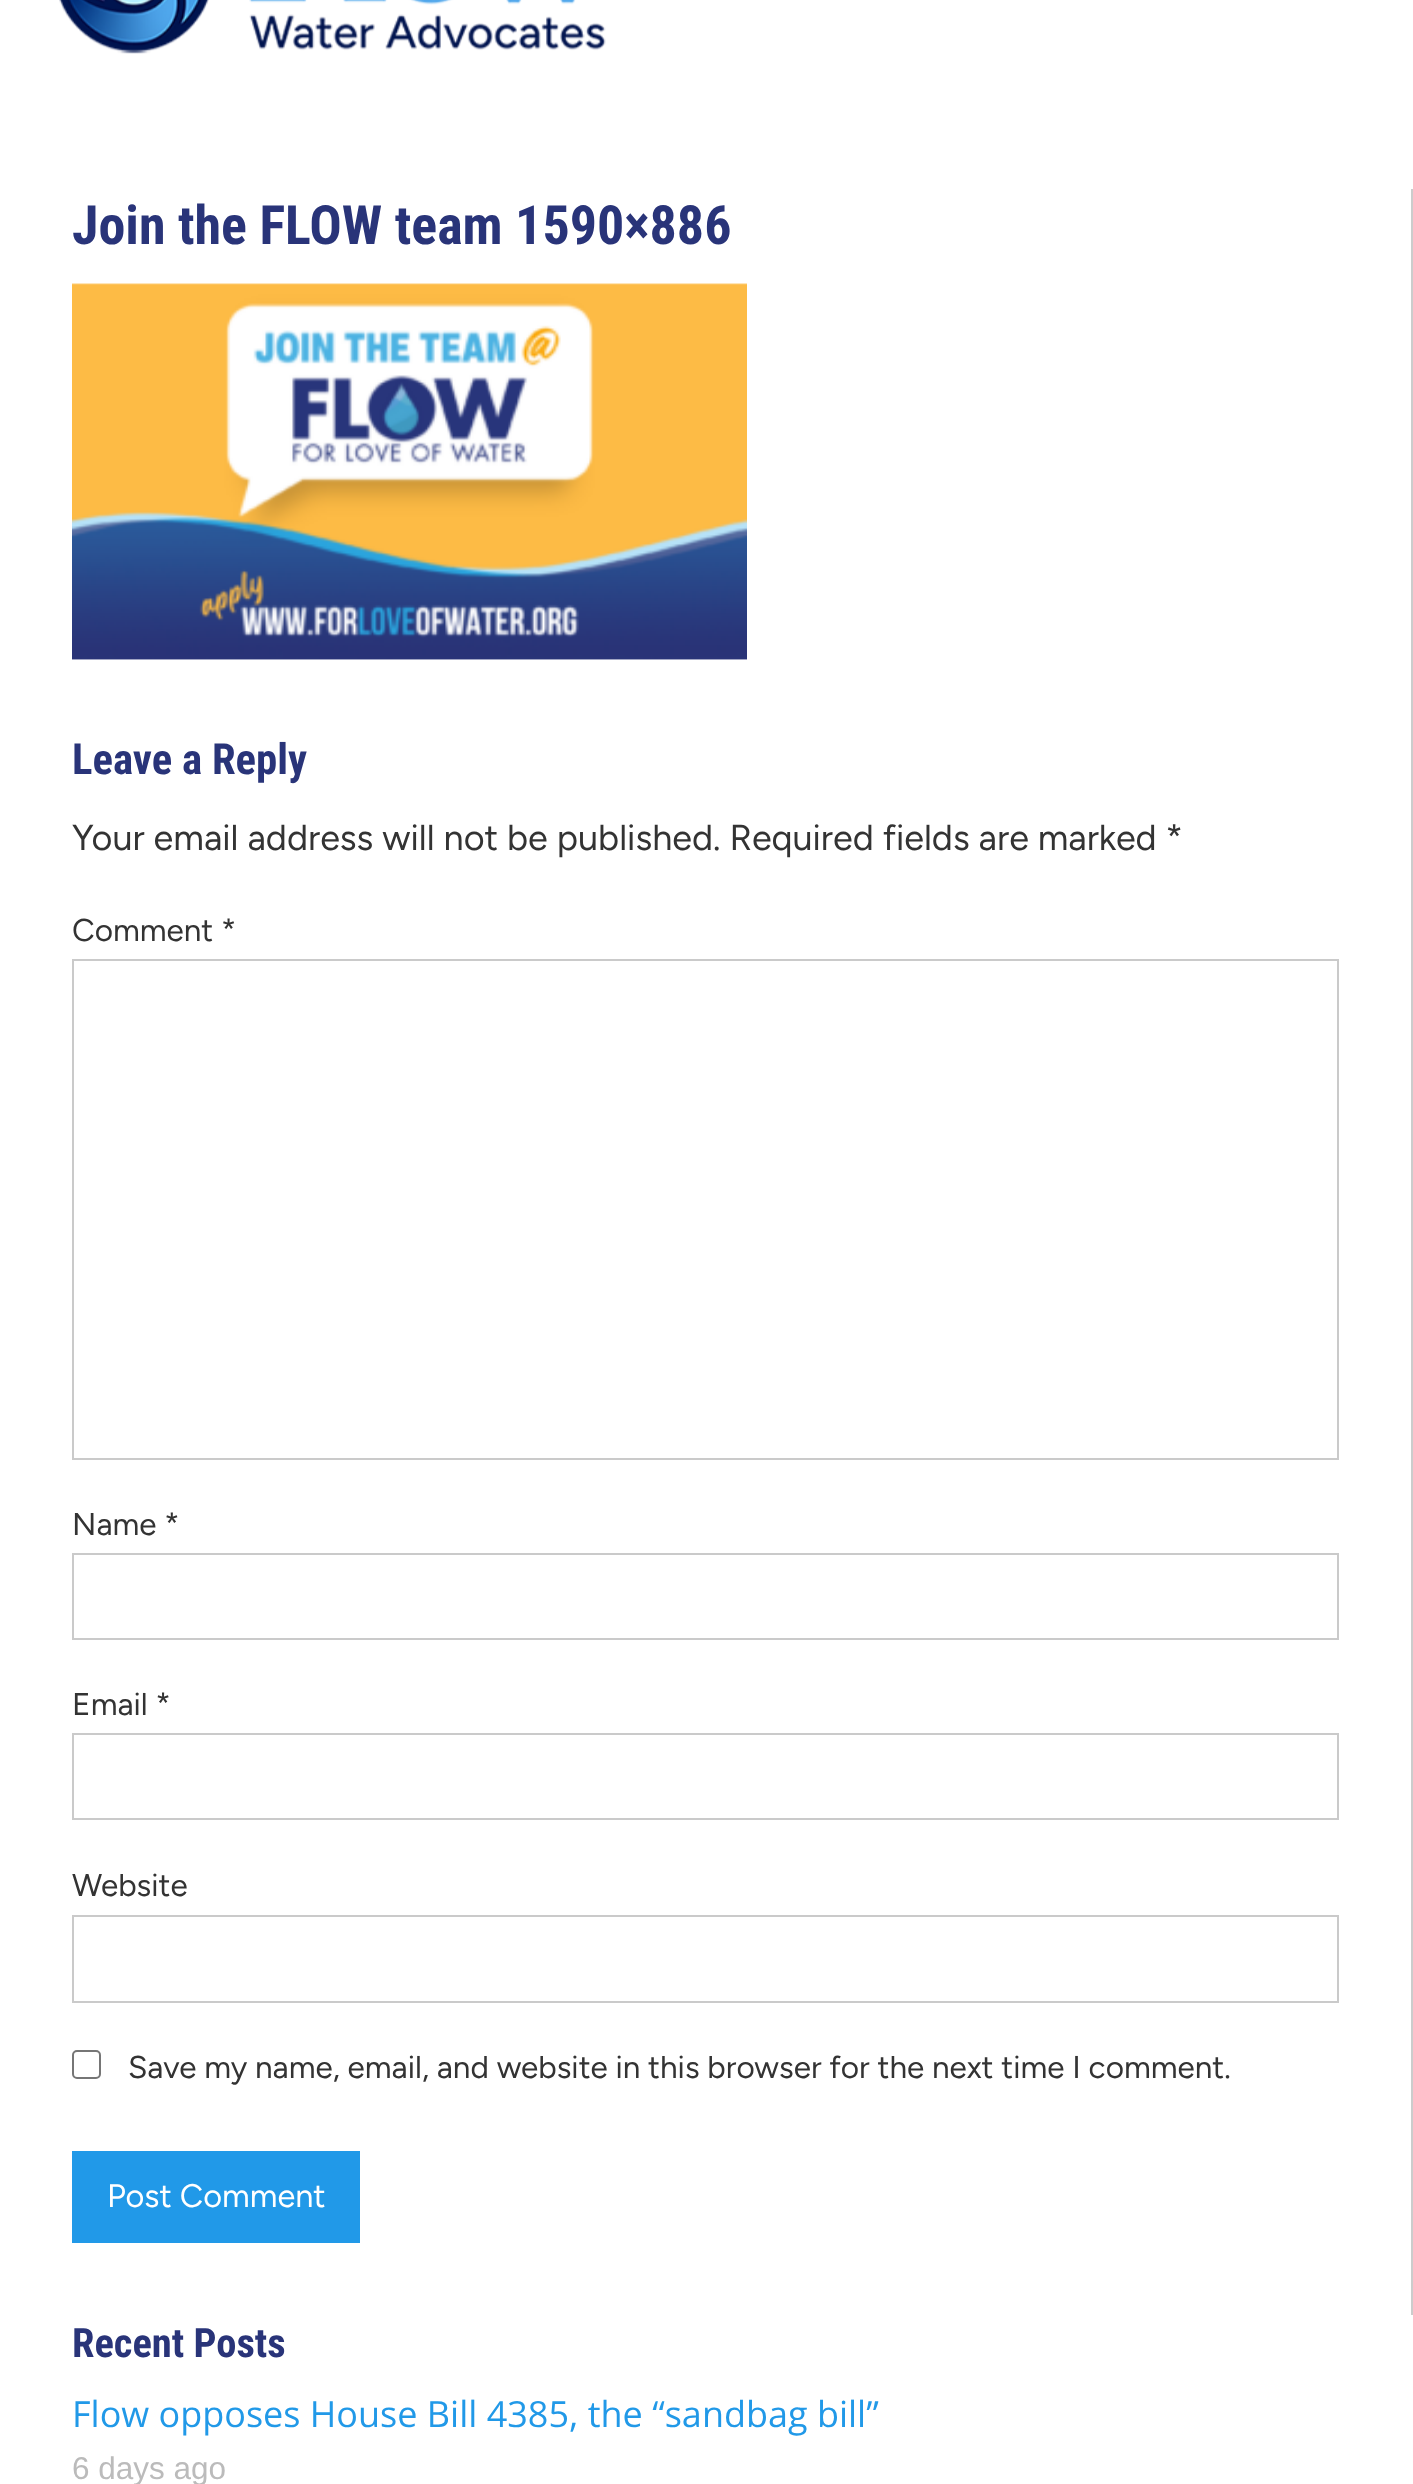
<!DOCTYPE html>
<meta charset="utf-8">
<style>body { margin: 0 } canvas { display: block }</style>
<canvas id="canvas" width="1413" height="2484"></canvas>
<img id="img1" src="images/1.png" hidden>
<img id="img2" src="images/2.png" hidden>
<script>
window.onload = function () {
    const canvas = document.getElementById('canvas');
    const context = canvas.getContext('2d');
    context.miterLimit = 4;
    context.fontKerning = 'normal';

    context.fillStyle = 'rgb(255, 255, 255)';
    context.fillRect(0, 0, 1413, 2484);
    context.drawImage(document.getElementById('img1'), 59, 0, 547, 54);
    context.fillStyle = 'rgb(204, 204, 204)';
    context.fillRect(1411, 189, 2, 2126);
    context.drawImage(document.getElementById('img2'), 72, 283, 675, 377);
    context.strokeStyle = 'rgb(202, 202, 202)';
    context.lineWidth = 2;
    context.strokeRect(73, 960, 1265, 499);
    context.strokeRect(73, 1554, 1265, 85);
    context.strokeRect(73, 1734, 1265, 85);
    context.strokeRect(73, 1916, 1265, 86);
    context.beginPath();
    context.roundRect(73, 2051, 27, 27, 4);
    context.strokeStyle = 'rgb(118, 118, 118)';
    context.stroke();
    context.fillStyle = 'rgb(33, 153, 232)';
    context.fillRect(72, 2151, 288, 92);
    context.font = 'bold 54px Roboto Condensed';
    context.fillStyle = 'rgb(41, 52, 121)';
    context.fillText('Join the FLOW team 1590×886', 72, 244);
    context.font = 'bold 42.75px Roboto Condensed';
    context.fillText('Leave a Reply', 72, 774);
    context.font = '36px Figtree';
    context.fillStyle = 'rgb(51, 51, 51)';
    context.fillText('Your email address will not be published. Required fields are marked *', 72, 850);
    context.font = '31.5px Figtree';
    context.fillText('Comment *', 72, 941);
    context.fillText('Name *', 72, 1535);
    context.fillText('Email *', 72, 1715);
    context.fillText('Website', 72, 1896);
    context.fillText('Save my name, email, and website in this browser for the next time I comment.', 128, 2078);
    context.font = '32.5px Figtree';
    context.fillStyle = 'rgb(255, 255, 255)';
    context.fillText('Post Comment', 107, 2207);
    context.font = 'bold 40.5px Roboto Condensed';
    context.fillStyle = 'rgb(41, 52, 121)';
    context.fillText('Recent Posts', 72, 2357);
    context.font = '36px Open Sans';
    context.fillStyle = 'rgb(33, 153, 232)';
    context.fillText('Flow opposes House Bill 4385, the “sandbag bill”', 72, 2427);
    context.font = '31.5px Liberation Sans';
    context.fillStyle = 'rgb(187, 187, 187)';
    context.fillText('6 days ago', 72, 2479);
};
</script>
